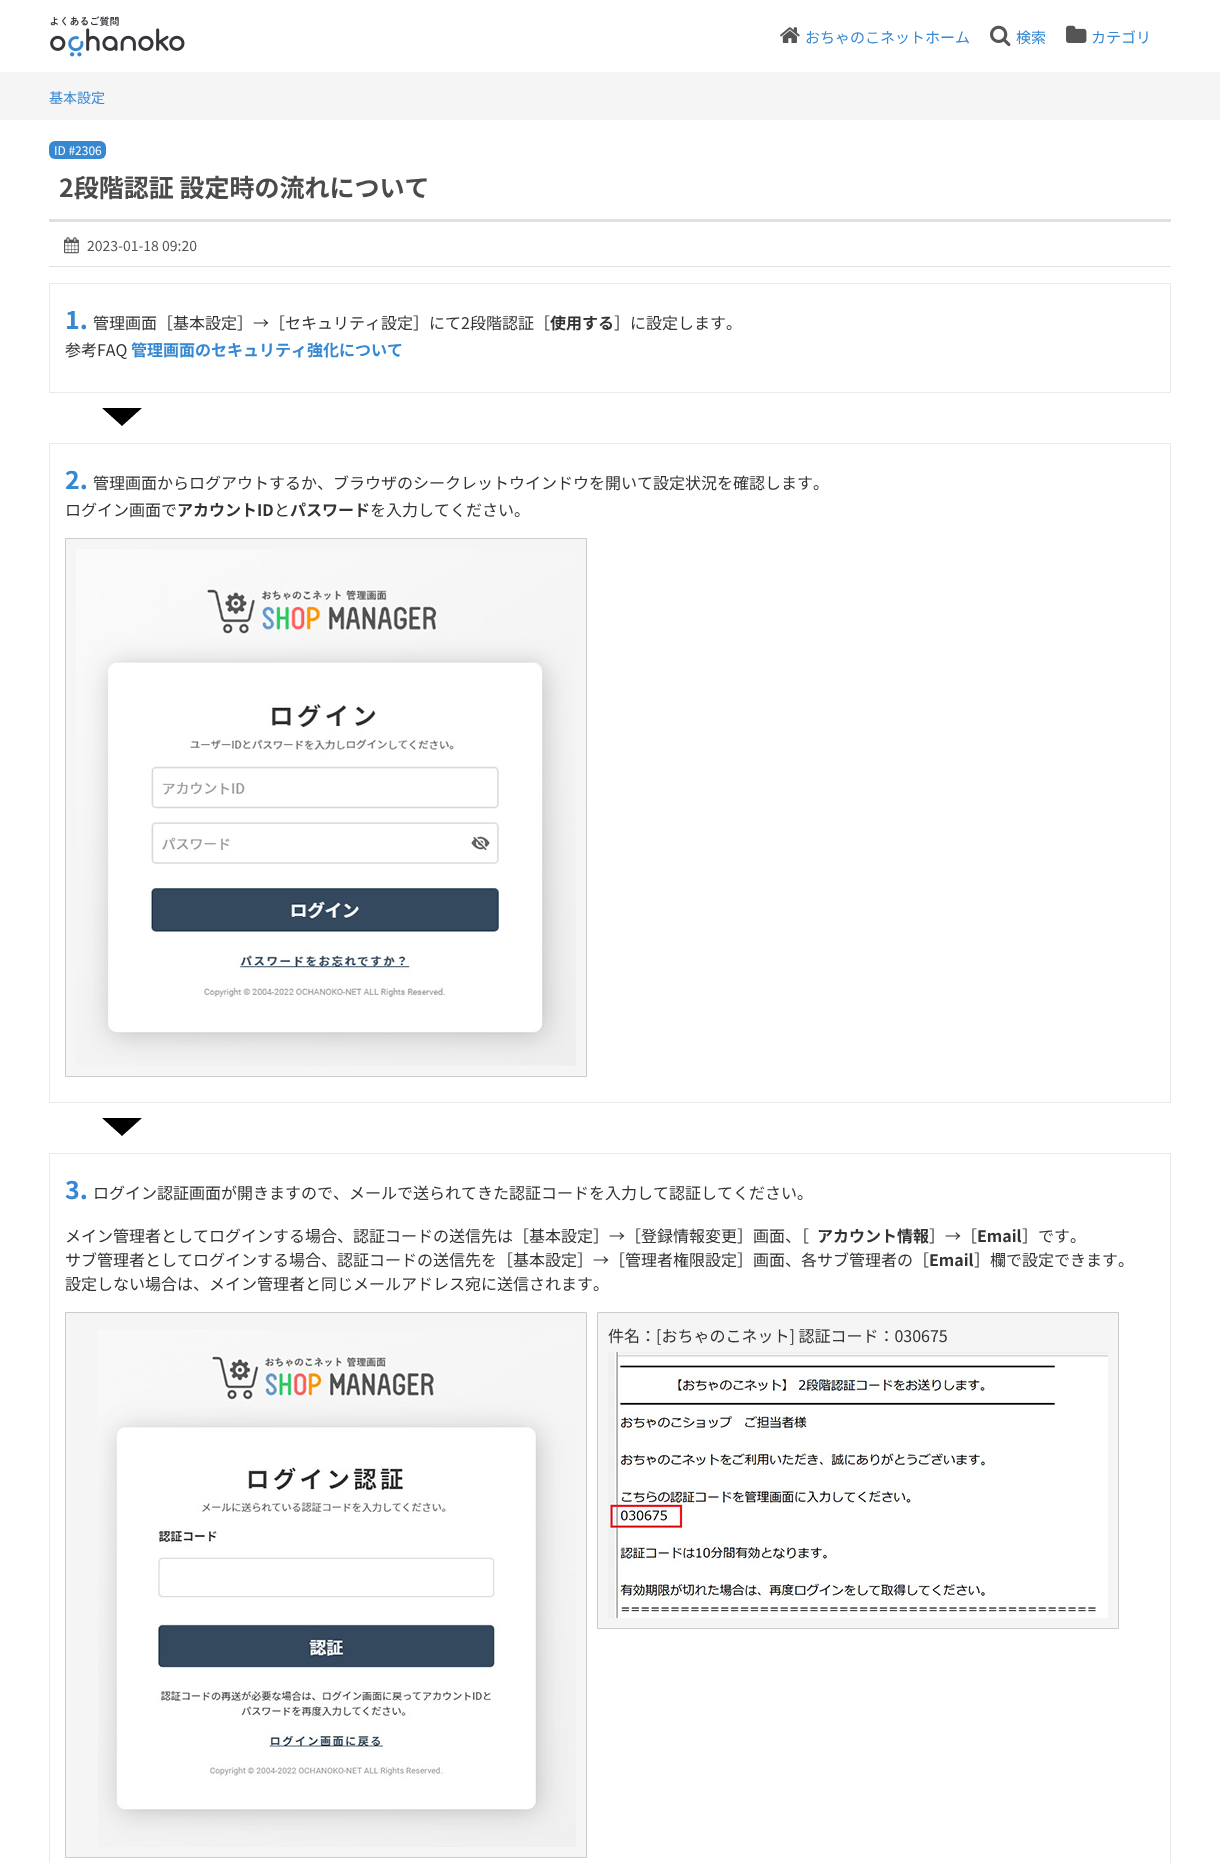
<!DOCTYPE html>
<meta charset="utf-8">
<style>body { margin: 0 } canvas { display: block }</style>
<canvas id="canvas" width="1220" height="1863"></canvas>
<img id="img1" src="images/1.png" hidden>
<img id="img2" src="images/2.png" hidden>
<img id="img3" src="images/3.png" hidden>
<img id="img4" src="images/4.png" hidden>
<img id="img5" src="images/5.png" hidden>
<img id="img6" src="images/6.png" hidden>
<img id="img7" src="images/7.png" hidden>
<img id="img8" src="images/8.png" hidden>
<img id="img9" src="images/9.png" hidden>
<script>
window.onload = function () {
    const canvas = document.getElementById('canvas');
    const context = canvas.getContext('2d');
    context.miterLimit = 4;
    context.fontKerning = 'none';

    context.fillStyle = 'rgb(255, 255, 255)';
    context.fillRect(0, 0, 1220, 1863);
    context.drawImage(document.getElementById('img1'), 50, 16, 135, 41);
    context.drawImage(document.getElementById('img2'), 780, 27, 20, 16);
    context.drawImage(document.getElementById('img3'), 990, 25, 21, 22);
    context.drawImage(document.getElementById('img4'), 1066, 25, 21, 18);
    context.fillStyle = 'rgb(245, 245, 245)';
    context.fillRect(0, 72, 1220, 48);
    context.fillStyle = 'rgb(53, 136, 209)';
    context.beginPath();
    context.roundRect(49, 141, 57, 18, 6);
    context.fill();
    context.fillStyle = 'rgb(224, 223, 227)';
    context.fillRect(49, 219, 1122, 3);
    context.fillRect(49, 266, 1122, 1);
    context.drawImage(document.getElementById('img5'), 64, 237, 15, 17);
    context.strokeStyle = 'rgb(234, 234, 234)';
    context.strokeRect(49.5, 283.5, 1121, 109);
    context.drawImage(document.getElementById('img6'), 102, 408, 40, 18);
    context.strokeRect(49.5, 443.5, 1121, 659);
    context.fillStyle = 'rgb(245, 245, 245)';
    context.beginPath();
    context.rect(65.5, 538.5, 521, 538);
    context.fill();
    context.strokeStyle = 'rgb(204, 204, 204)';
    context.stroke();
    context.drawImage(document.getElementById('img7'), 76, 549, 500, 517);
    context.drawImage(document.getElementById('img6'), 102, 1118, 40, 18);
    context.strokeStyle = 'rgb(234, 234, 234)';
    context.strokeRect(49.5, 1153.5, 1121, 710);
    context.beginPath();
    context.rect(65.5, 1312.5, 521, 545);
    context.fill();
    context.strokeStyle = 'rgb(204, 204, 204)';
    context.stroke();
    context.drawImage(document.getElementById('img8'), 98, 1330, 478, 517);
    context.beginPath();
    context.rect(597.5, 1312.5, 521, 316);
    context.fill();
    context.stroke();
    context.drawImage(document.getElementById('img9'), 608, 1352, 500, 266);
    context.font = '15px Noto Sans JP';
    context.fillStyle = 'rgb(53, 136, 209)';
    context.fillText('おちゃのこネットホーム', 805, 43);
    context.fillText('検索', 1016, 43);
    context.fillText('カテゴリ', 1091, 43);
    context.font = '14px Noto Sans JP';
    context.fillText('基本設定', 49, 103);
    context.font = '12px Noto Sans JP';
    context.fillStyle = 'rgb(255, 255, 255)';
    context.fillText('ID #2306', 54, 155);
    context.font = 'bold 25px Noto Sans JP';
    context.fillStyle = 'rgb(75, 75, 76)';
    context.fillText('2段階認証 設定時の流れについて', 59, 197);
    context.font = '14px Noto Sans JP';
    context.fillStyle = 'rgb(85, 85, 85)';
    context.fillText('2023-01-18 09:20', 87, 251);
    context.font = 'bold 25px Noto Sans JP';
    context.fillStyle = 'rgb(53, 136, 209)';
    context.fillText('1.', 65, 329);
    context.font = '16px Noto Sans JP';
    context.fillStyle = 'rgb(51, 51, 51)';
    context.fillText('管理画面［基本設定］→［セキュリティ設定］にて2段階認証［', 93, 329);
    context.font = 'bold 16px Noto Sans JP';
    context.fillText('使用する', 550, 329);
    context.font = '16px Noto Sans JP';
    context.fillText('］に設定します。', 614, 329);
    context.fillText('参考FAQ', 65, 356);
    context.font = 'bold 16px Noto Sans JP';
    context.fillStyle = 'rgb(53, 136, 209)';
    context.fillText('管理画面のセキュリティ強化について', 131, 356);
    context.font = 'bold 25px Noto Sans JP';
    context.fillText('2.', 65, 489);
    context.font = '16px Noto Sans JP';
    context.fillStyle = 'rgb(51, 51, 51)';
    context.fillText('管理画面からログアウトするか、ブラウザのシークレットウインドウを開いて設定状況を確認します。', 93, 489);
    context.fillText('ログイン画面で', 65, 516);
    context.font = 'bold 16px Noto Sans JP';
    context.fillText('アカウントID', 177, 516);
    context.font = '16px Noto Sans JP';
    context.fillText('と', 274, 516);
    context.font = 'bold 16px Noto Sans JP';
    context.fillText('パスワード', 290, 516);
    context.font = '16px Noto Sans JP';
    context.fillText('を入力してください。', 370, 516);
    context.font = 'bold 25px Noto Sans JP';
    context.fillStyle = 'rgb(53, 136, 209)';
    context.fillText('3.', 65, 1199);
    context.font = '16px Noto Sans JP';
    context.fillStyle = 'rgb(51, 51, 51)';
    context.fillText('ログイン認証画面が開きますので、メールで送られてきた認証コードを入力して認証してください。', 93, 1199);
    context.fillText('メイン管理者としてログインする場合、認証コードの送信先は［基本設定］→［登録情報変更］画面、［', 65, 1242);
    context.font = 'bold 16px Noto Sans JP';
    context.fillText('アカウント情報', 817, 1242);
    context.font = '16px Noto Sans JP';
    context.fillText('］→［', 929, 1242);
    context.font = 'bold 16px Noto Sans JP';
    context.fillText('Email', 977, 1242);
    context.font = '16px Noto Sans JP';
    context.fillText('］です。', 1022, 1242);
    context.fillText('サブ管理者としてログインする場合、認証コードの送信先を［基本設定］→［管理者権限設定］画面、各サブ管理者の［', 65, 1266);
    context.font = 'bold 16px Noto Sans JP';
    context.fillText('Email', 929, 1266);
    context.font = '16px Noto Sans JP';
    context.fillText('］欄で設定できます。', 974, 1266);
    context.fillText('設定しない場合は、メイン管理者と同じメールアドレス宛に送信されます。', 65, 1290);
    context.fillText('件名：[おちゃのこネット] 認証コード：030675', 608, 1342);
};
</script>
